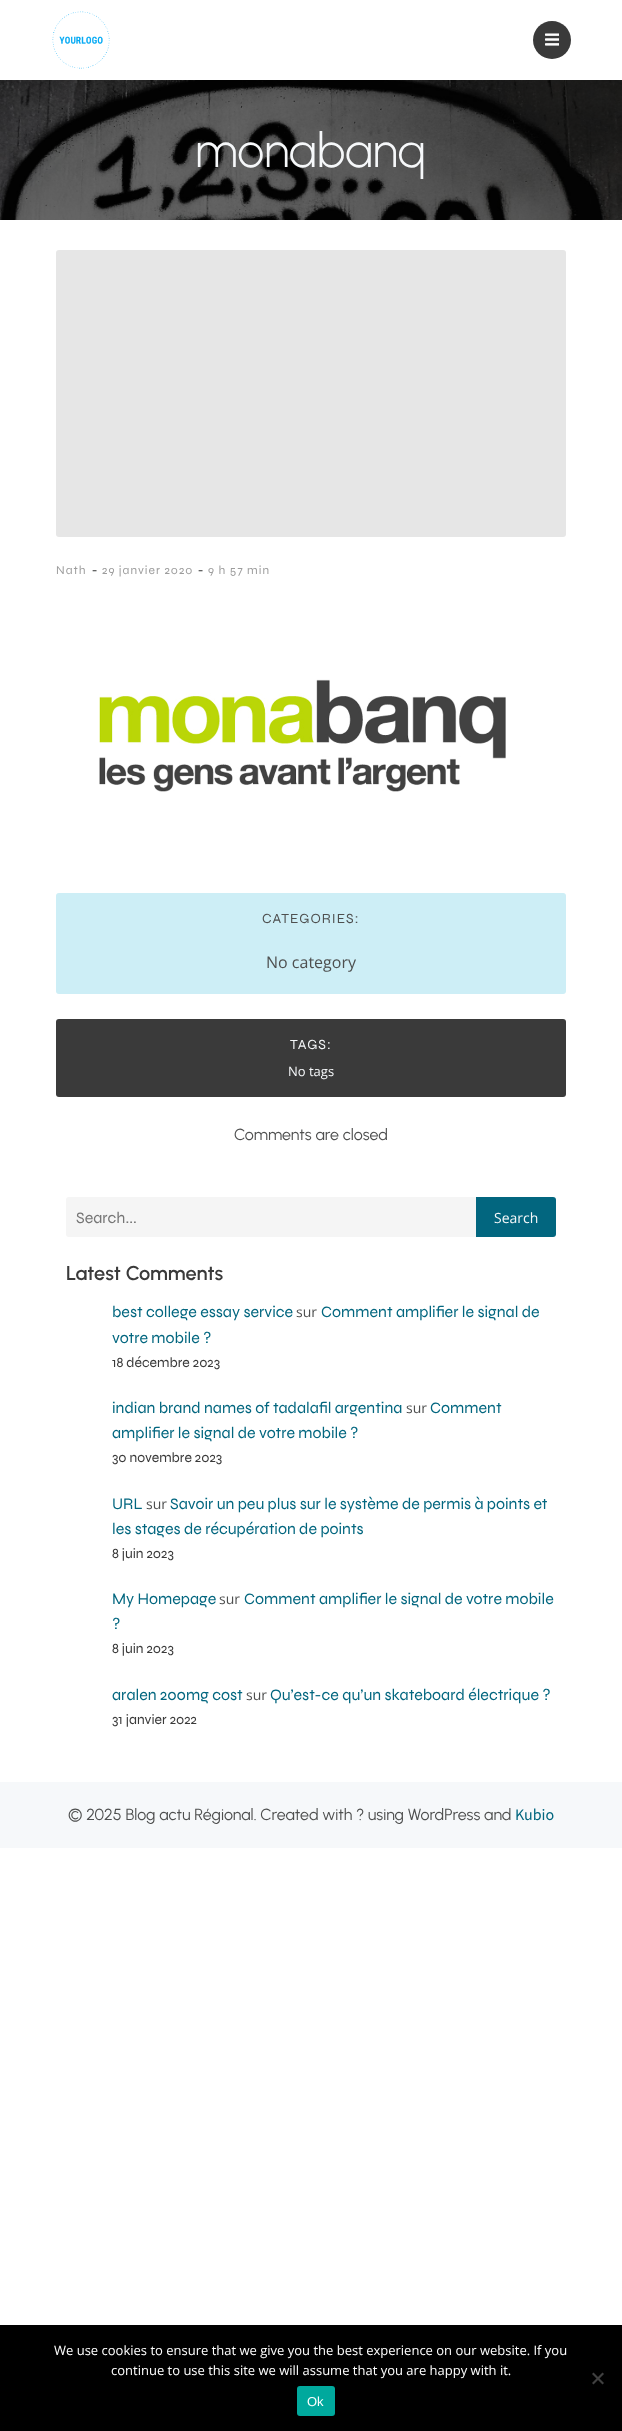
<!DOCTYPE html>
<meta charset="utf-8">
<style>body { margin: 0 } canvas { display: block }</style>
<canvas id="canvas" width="622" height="2431"></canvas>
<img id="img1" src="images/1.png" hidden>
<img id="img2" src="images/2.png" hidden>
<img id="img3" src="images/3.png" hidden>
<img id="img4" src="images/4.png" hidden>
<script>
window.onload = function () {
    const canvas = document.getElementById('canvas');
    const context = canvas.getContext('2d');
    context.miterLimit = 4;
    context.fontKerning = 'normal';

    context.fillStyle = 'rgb(255, 255, 255)';
    context.fillRect(0, 0, 622, 2431);
    context.drawImage(document.getElementById('img1'), 52, 11, 58, 58);
    context.fillStyle = 'rgb(58, 58, 58)';
    context.beginPath();
    context.arc(552, 40, 19, 0, 2 * Math.PI);
    context.fill();
    context.drawImage(document.getElementById('img2'), 545, 33, 14, 13);
    context.drawImage(document.getElementById('img3'), 0, 80, 622, 140);
    context.fillStyle = 'rgb(230, 230, 230)';
    context.beginPath();
    context.roundRect(56, 250, 510, 287, 3);
    context.fill();
    context.drawImage(document.getElementById('img4'), 99, 679, 407, 113);
    context.fillStyle = 'rgb(205, 238, 246)';
    context.beginPath();
    context.roundRect(56, 893, 510, 101, 3);
    context.fill();
    context.fillStyle = 'rgb(58, 58, 58)';
    context.beginPath();
    context.roundRect(56, 1019, 510, 78, 3);
    context.fill();
    context.fillStyle = 'rgb(245, 245, 245)';
    context.beginPath();
    context.roundRect(66, 1197, 410, 40, [3, 0, 0, 3]);
    context.fill();
    context.fillStyle = 'rgb(2, 102, 127)';
    context.beginPath();
    context.roundRect(476, 1197, 80, 40, [0, 3, 3, 0]);
    context.fill();
    context.fillStyle = 'rgb(246, 248, 250)';
    context.fillRect(0, 1782, 622, 66);
    context.fillStyle = 'rgb(0, 0, 0)';
    context.fillRect(0, 2325, 622, 106);
    context.fillStyle = 'rgb(64, 64, 64)';
    context.beginPath();
    context.moveTo(602.5, 2372.5);
    context.lineTo(604, 2374);
    context.lineTo(593.5, 2384.5);
    context.lineTo(592, 2383);
    context.closePath();
    context.fill();
    context.beginPath();
    context.moveTo(592, 2374);
    context.lineTo(593.5, 2372.5);
    context.lineTo(604, 2383);
    context.lineTo(602.5, 2384.5);
    context.closePath();
    context.fill();
    context.fillStyle = 'rgb(0, 169, 157)';
    context.beginPath();
    context.roundRect(297, 2386, 38, 30, 3);
    context.fill();
    context.font = '300 48px Urbanist';
    context.fillStyle = 'rgb(246, 248, 250)';
    context.fillText('monabanq', 195, 167);
    context.letterSpacing = '1px';
    context.font = '12px Syne';
    context.fillStyle = 'rgb(157, 157, 157)';
    context.fillText('Nath', 56, 574);
    context.letterSpacing = '0px';
    context.font = '16px Open Sans';
    context.fillStyle = 'rgb(78, 79, 79)';
    context.fillText('-', 92, 575);
    context.letterSpacing = '1px';
    context.font = '12px Syne';
    context.fillStyle = 'rgb(157, 157, 157)';
    context.fillText('29 janvier 2020', 102, 574);
    context.letterSpacing = '0px';
    context.font = '16px Open Sans';
    context.fillStyle = 'rgb(78, 79, 79)';
    context.fillText('-', 198, 575);
    context.letterSpacing = '1px';
    context.font = '12px Syne';
    context.fillStyle = 'rgb(157, 157, 157)';
    context.fillText('9 h 57 min', 208, 574);
    context.font = '14px Syne';
    context.fillStyle = 'rgb(78, 79, 79)';
    context.fillText('CATEGORIES:', 262, 923);
    context.letterSpacing = '0px';
    context.font = '16px Open Sans';
    context.fillText('No category', 266, 968);
    context.letterSpacing = '1px';
    context.font = '14px Syne';
    context.fillStyle = 'rgb(246, 248, 250)';
    context.fillText('TAGS:', 290, 1049);
    context.letterSpacing = '0px';
    context.font = '13px Open Sans';
    context.fillText('No tags', 288, 1076);
    context.font = '16px Urbanist';
    context.fillStyle = 'rgb(78, 79, 79)';
    context.fillText('Comments are closed', 234, 1140);
    context.font = '16px Syne';
    context.fillStyle = 'rgb(117, 117, 117)';
    context.fillText('Search...', 76, 1223);
    context.font = '14px Open Sans';
    context.fillStyle = 'rgb(246, 248, 250)';
    context.fillText('Search', 494, 1223);
    context.font = '600 20px Urbanist';
    context.fillStyle = 'rgb(58, 58, 58)';
    context.fillText('Latest Comments', 66, 1280);
    context.font = '16px Syne';
    context.fillStyle = 'rgb(2, 102, 127)';
    context.fillText('best college essay service', 112, 1317);
    context.font = '14px Open Sans';
    context.fillStyle = 'rgb(78, 79, 79)';
    context.fillText('sur', 296, 1317);
    context.font = '16px Syne';
    context.fillStyle = 'rgb(2, 102, 127)';
    context.fillText('Comment amplifier le signal de', 321, 1317);
    context.fillText('votre mobile ?', 112, 1343);
    context.font = '14px Syne';
    context.fillStyle = 'rgb(58, 58, 58)';
    context.fillText('18 décembre 2023', 112, 1367);
    context.font = '16px Syne';
    context.fillStyle = 'rgb(2, 102, 127)';
    context.fillText('indian brand names of tadalafil argentina', 112, 1413);
    context.font = '14px Open Sans';
    context.fillStyle = 'rgb(78, 79, 79)';
    context.fillText('sur', 406, 1413);
    context.font = '16px Syne';
    context.fillStyle = 'rgb(2, 102, 127)';
    context.fillText('Comment', 430, 1413);
    context.fillText('amplifier le signal de votre mobile ?', 112, 1438);
    context.font = '14px Syne';
    context.fillStyle = 'rgb(58, 58, 58)';
    context.fillText('30 novembre 2023', 112, 1462);
    context.font = '16px Syne';
    context.fillStyle = 'rgb(2, 102, 127)';
    context.fillText('URL', 112, 1509);
    context.font = '14px Open Sans';
    context.fillStyle = 'rgb(78, 79, 79)';
    context.fillText('sur', 146, 1509);
    context.font = '16px Syne';
    context.fillStyle = 'rgb(2, 102, 127)';
    context.fillText('Savoir un peu plus sur le système de permis à points et', 170, 1509);
    context.fillText('les stages de récupération de points', 112, 1534);
    context.font = '14px Syne';
    context.fillStyle = 'rgb(58, 58, 58)';
    context.fillText('8 juin 2023', 112, 1558);
    context.font = '16px Syne';
    context.fillStyle = 'rgb(2, 102, 127)';
    context.fillText('My Homepage', 112, 1604);
    context.font = '14px Open Sans';
    context.fillStyle = 'rgb(78, 79, 79)';
    context.fillText('sur', 219, 1604);
    context.font = '16px Syne';
    context.fillStyle = 'rgb(2, 102, 127)';
    context.fillText('Comment amplifier le signal de votre mobile', 244, 1604);
    context.fillText('?', 112, 1629);
    context.font = '14px Syne';
    context.fillStyle = 'rgb(58, 58, 58)';
    context.fillText('8 juin 2023', 112, 1653);
    context.font = '16px Syne';
    context.fillStyle = 'rgb(2, 102, 127)';
    context.fillText('aralen 200mg cost', 112, 1700);
    context.font = '14px Open Sans';
    context.fillStyle = 'rgb(78, 79, 79)';
    context.fillText('sur', 246, 1700);
    context.font = '16px Syne';
    context.fillStyle = 'rgb(2, 102, 127)';
    context.fillText('Qu’est-ce qu’un skateboard électrique ?', 270, 1700);
    context.font = '14px Syne';
    context.fillStyle = 'rgb(58, 58, 58)';
    context.fillText('31 janvier 2022', 112, 1724);
    context.font = '16px Urbanist';
    context.fillStyle = 'rgb(78, 79, 79)';
    context.fillText('© 2025 Blog actu Régional. Created with ? using WordPress and', 68, 1820);
    context.font = '16px Source Sans Pro';
    context.fillStyle = 'rgb(2, 102, 127)';
    context.fillText('Kubio', 515, 1820);
    context.font = '13px Open Sans';
    context.fillStyle = 'rgb(255, 255, 255)';
    context.fillText('We use cookies to ensure that we give you the best experience on our website. If you', 54, 2355);
    context.fillText('continue to use this site we will assume that you are happy with it.', 111, 2375);
    context.font = '13px Liberation Sans';
    context.fillText('Ok', 307, 2406);
};
</script>
